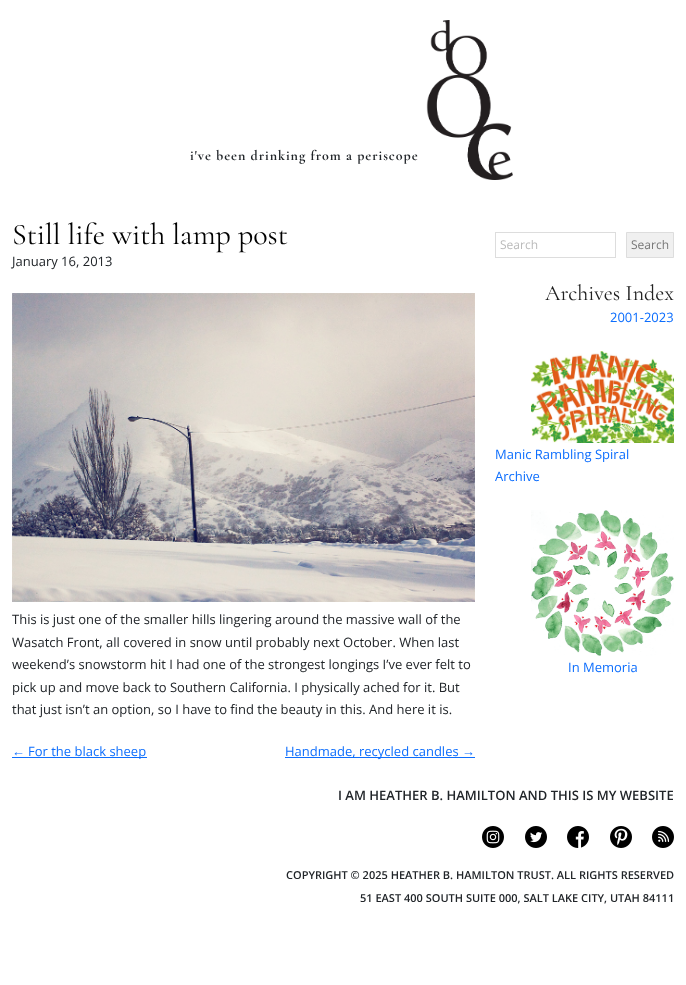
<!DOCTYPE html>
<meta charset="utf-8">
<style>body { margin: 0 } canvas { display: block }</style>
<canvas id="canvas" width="686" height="985"></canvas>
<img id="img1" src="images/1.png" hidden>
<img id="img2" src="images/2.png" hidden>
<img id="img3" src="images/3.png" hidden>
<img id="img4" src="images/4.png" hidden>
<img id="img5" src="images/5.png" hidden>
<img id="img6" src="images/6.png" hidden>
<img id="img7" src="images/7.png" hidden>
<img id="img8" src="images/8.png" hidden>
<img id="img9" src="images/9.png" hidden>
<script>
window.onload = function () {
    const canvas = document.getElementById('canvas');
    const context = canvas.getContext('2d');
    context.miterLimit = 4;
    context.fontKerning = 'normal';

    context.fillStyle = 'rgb(255, 255, 255)';
    context.fillRect(0, 0, 686, 985);
    context.drawImage(document.getElementById('img1'), 426, 20, 87, 160);
    context.drawImage(document.getElementById('img2'), 12, 293, 463, 309);
    context.fillStyle = 'rgb(13, 110, 253)';
    context.fillRect(12, 757, 135, 1);
    context.fillRect(285, 757, 190, 1);
    context.strokeStyle = 'rgb(221, 221, 221)';
    context.strokeRect(495.5, 232.5, 120, 25);
    context.fillStyle = 'rgb(240, 240, 240)';
    context.beginPath();
    context.rect(626.5, 232.5, 47, 25);
    context.fill();
    context.stroke();
    context.drawImage(document.getElementById('img3'), 531, 351, 143, 92);
    context.drawImage(document.getElementById('img4'), 531, 510, 143, 146);
    context.drawImage(document.getElementById('img5'), 482, 826, 22, 22);
    context.drawImage(document.getElementById('img6'), 525, 826, 22, 22);
    context.drawImage(document.getElementById('img7'), 567, 826, 22, 22);
    context.drawImage(document.getElementById('img8'), 610, 826, 22, 22);
    context.drawImage(document.getElementById('img9'), 652, 826, 22, 22);
    context.letterSpacing = '1px';
    context.font = 'bold 14px Cormorant Garamond';
    context.fillStyle = 'rgb(33, 37, 41)';
    context.fillText('i\'ve been drinking from a periscope', 190, 160);
    context.letterSpacing = '0px';
    context.font = '30px Cormorant Garamond';
    context.fillStyle = 'rgb(0, 0, 0)';
    context.fillText('Still life with lamp post', 12, 244);
    context.font = '13px Open Sans';
    context.fillStyle = 'rgb(33, 37, 41)';
    context.fillText('January 16, 2013', 12, 266);
    context.fillText('This is just one of the smaller hills lingering around the massive wall of the', 12, 624);
    context.fillText('Wasatch Front, all covered in snow until probably next October. When last', 12, 647);
    context.fillText('weekend’s snowstorm hit I had one of the strongest longings I’ve ever felt to', 12, 669);
    context.fillText('pick up and move back to Southern California. I physically ached for it. But', 12, 692);
    context.fillText('that just isn’t an option, so I have to find the beauty in this. And here it is.', 12, 714);
    context.font = '13px Liberation Sans';
    context.fillStyle = 'rgb(13, 110, 253)';
    context.fillText('←', 12, 756);
    context.font = '13px Open Sans';
    context.fillText('For the black sheep', 28, 756);
    context.fillText('Handmade, recycled candles', 285, 756);
    context.font = '13px Liberation Sans';
    context.fillText('→', 462, 756);
    context.font = '12px Open Sans';
    context.fillStyle = 'rgb(186, 186, 186)';
    context.fillText('Search', 500, 249);
    context.fillStyle = 'rgb(119, 119, 119)';
    context.fillText('Search', 631, 249);
    context.font = '22px Cormorant Garamond';
    context.fillStyle = 'rgb(34, 34, 34)';
    context.fillText('Archives Index', 545, 300);
    context.font = '13px Open Sans';
    context.fillStyle = 'rgb(13, 110, 253)';
    context.fillText('2001-2023', 610, 322);
    context.fillText('Manic Rambling Spiral', 495, 459);
    context.fillText('Archive', 495, 481);
    context.fillText('In Memoria', 568, 672);
    context.font = '600 13px Open Sans';
    context.fillStyle = 'rgb(33, 37, 41)';
    context.fillText('I AM HEATHER B. HAMILTON AND THIS IS MY WEBSITE', 338, 800);
    context.font = '600 11px Open Sans';
    context.fillText('COPYRIGHT © 2025 HEATHER B. HAMILTON TRUST. ALL RIGHTS RESERVED', 286, 879);
    context.fillText('51 EAST 400 SOUTH SUITE 000, SALT LAKE CITY, UTAH 84111', 360, 902);
};
</script>
